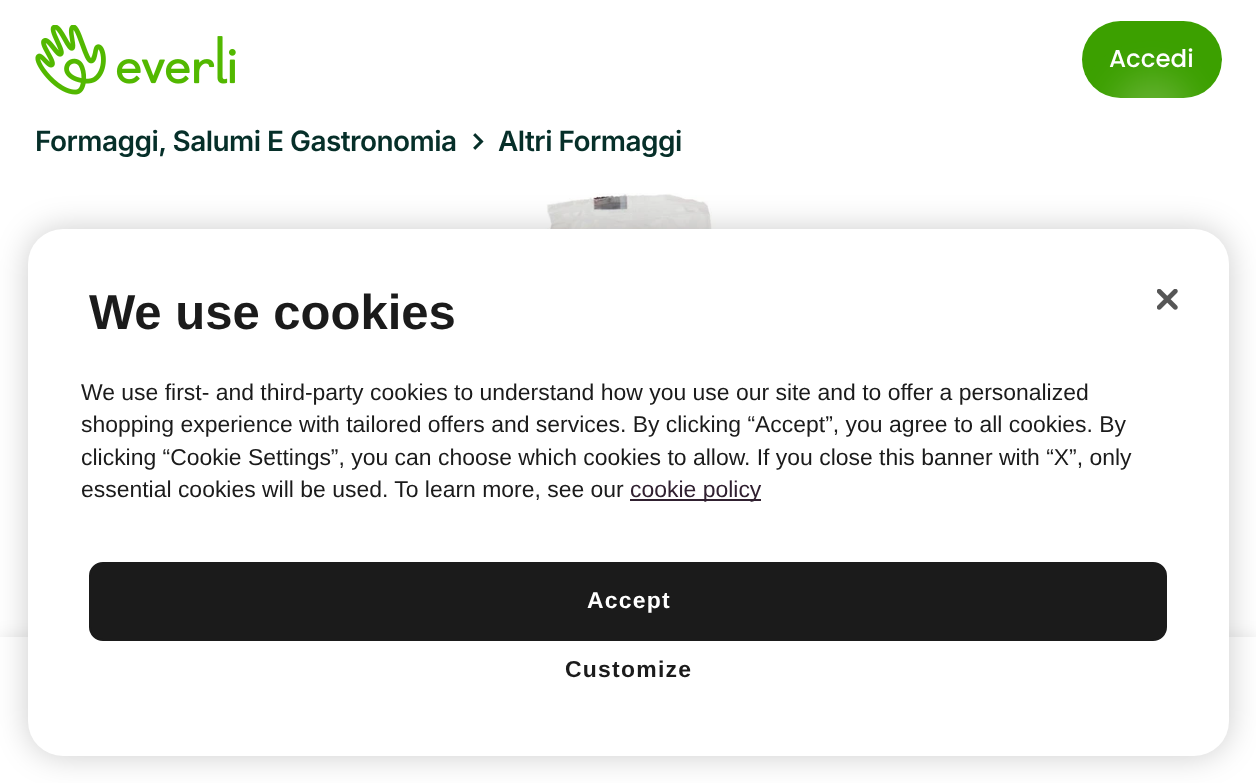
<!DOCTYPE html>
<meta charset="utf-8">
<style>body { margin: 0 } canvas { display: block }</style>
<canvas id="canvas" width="1256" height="783"></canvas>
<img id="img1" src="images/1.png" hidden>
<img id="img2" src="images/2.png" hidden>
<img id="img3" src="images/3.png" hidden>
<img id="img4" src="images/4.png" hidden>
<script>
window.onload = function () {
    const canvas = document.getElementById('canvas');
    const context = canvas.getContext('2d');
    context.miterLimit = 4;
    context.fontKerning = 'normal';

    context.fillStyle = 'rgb(255, 255, 255)';
    context.fillRect(0, 0, 1256, 783);
    context.drawImage(document.getElementById('img1'), 35, 25, 201, 70);
    context.save();
    context.beginPath();
    context.roundRect(35, 0, 1187, 119, 59.5);
    context.clip();
    context.fillStyle = 'rgb(60, 160, 0)';
    context.beginPath();
    context.roundRect(1082, 21, 140, 77, 38.5);
    context.fill();
    context.restore();
    context.save();
    context.beginPath();
    context.roundRect(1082, 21, 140, 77, 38.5);
    context.clip();
    context.fillStyle = 'rgba(255, 244, 234, 0.2)';
    context.filter = 'blur(17.5px)';
    context.beginPath();
    context.roundRect(1113, 75, 79, 79, 39.5);
    context.fill();
    context.filter = 'none';
    context.restore();
    context.drawImage(document.getElementById('img2'), 473, 133, 11, 17);
    context.drawImage(document.getElementById('img3'), 545, 193, 171, 36);
    context.fillStyle = 'rgba(0, 0, 0, 0.1)';
    context.filter = 'blur(9px)';
    context.beginPath();
    context.rect(0, 637, 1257, 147);
    context.fill();
    context.filter = 'none';
    context.fillStyle = 'rgb(255, 255, 255)';
    context.fillRect(0, 637, 1256, 146);
    context.fillStyle = 'rgba(0, 0, 0, 0.2)';
    context.filter = 'blur(16px)';
    context.beginPath();
    context.roundRect(28, 229, 1201, 527, 35);
    context.fill();
    context.filter = 'none';
    context.fillStyle = 'rgb(255, 255, 255)';
    context.beginPath();
    context.roundRect(28, 229, 1201, 527, 35);
    context.fill();
    context.fillStyle = 'rgb(48, 32, 48)';
    context.fillRect(630, 499, 131, 2);
    context.drawImage(document.getElementById('img4'), 1157, 289, 21, 21);
    context.fillStyle = 'rgb(27, 27, 27)';
    context.beginPath();
    context.roundRect(90, 563, 1076, 77, 13);
    context.fill();
    context.strokeStyle = 'rgb(27, 27, 27)';
    context.lineWidth = 2;
    context.stroke();
    context.font = '500 24.5px Poppins';
    context.fillStyle = 'rgb(255, 255, 255)';
    context.fillText('Accedi', 1109, 67);
    context.letterSpacing = '-0.55px';
    context.font = '600 28px Inter';
    context.fillStyle = 'rgb(6, 47, 41)';
    context.fillText('Formaggi, Salumi E Gastronomia', 35, 151);
    context.fillText('Altri Formaggi', 498, 151);
    context.letterSpacing = '0px';
    context.font = 'bold 49px Liberation Sans';
    context.fillStyle = 'rgb(27, 27, 27)';
    context.fillText('We use cookies', 89, 329);
    context.font = '22.95px Liberation Sans';
    context.fillText('We use first- and third-party cookies to understand how you use our site and to offer a personalized', 81, 400);
    context.fillText('shopping experience with tailored offers and services. By clicking “Accept”, you agree to all cookies. By', 81, 432);
    context.fillText('clicking “Cookie Settings”, you can choose which cookies to allow. If you close this banner with “X”, only', 81, 465);
    context.fillText('essential cookies will be used. To learn more, see our', 81, 497);
    context.fillStyle = 'rgb(48, 32, 48)';
    context.fillText('cookie policy', 630, 497);
    context.letterSpacing = '1.25px';
    context.font = 'bold 22.95px Liberation Sans';
    context.fillStyle = 'rgb(255, 255, 255)';
    context.fillText('Accept', 587, 608);
    context.fillStyle = 'rgb(27, 27, 27)';
    context.fillText('Customize', 565, 677);
};
</script>
